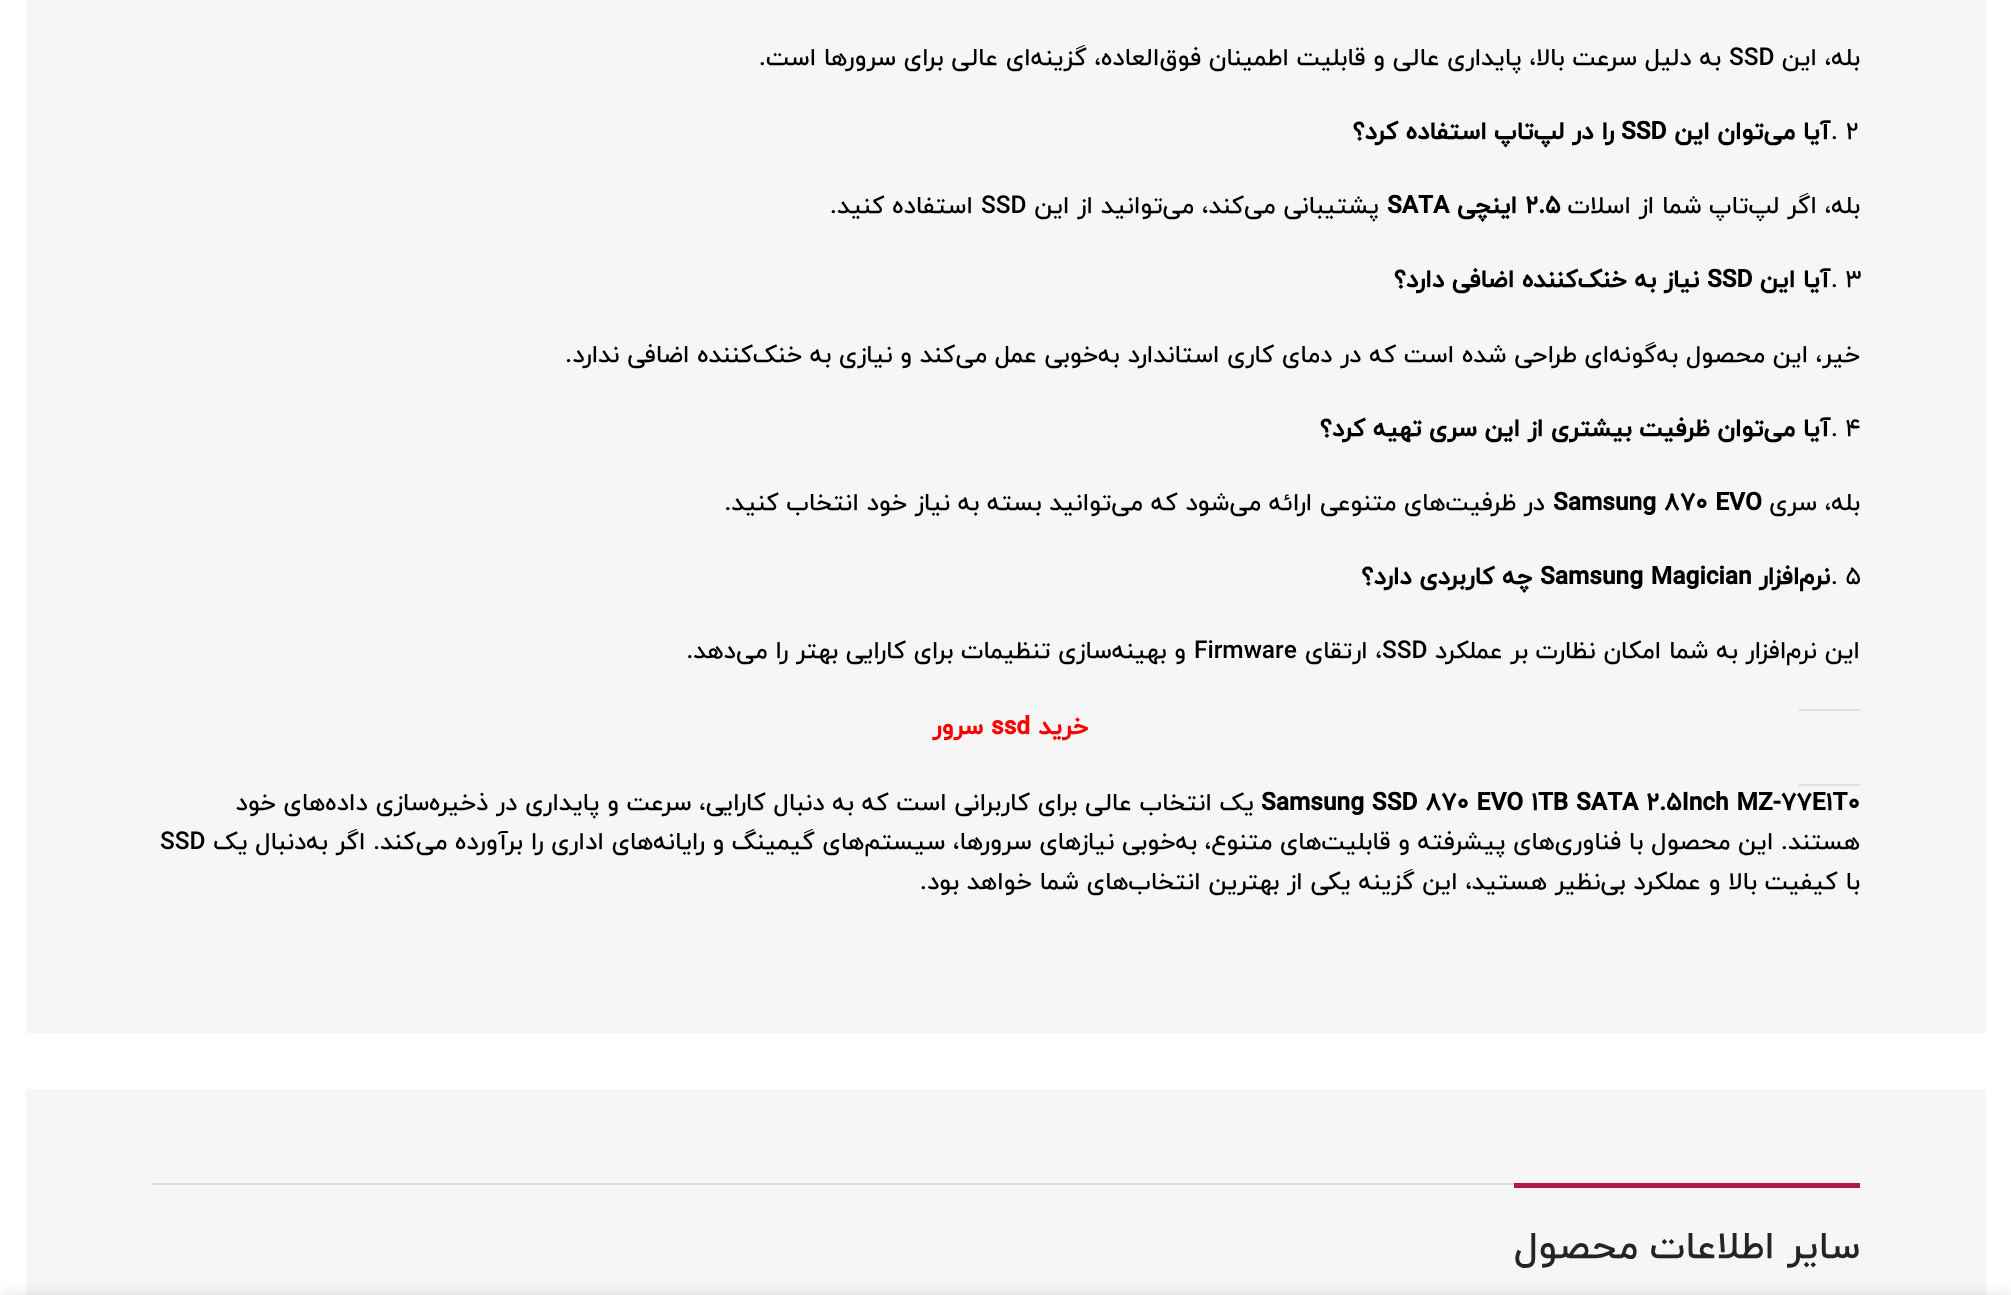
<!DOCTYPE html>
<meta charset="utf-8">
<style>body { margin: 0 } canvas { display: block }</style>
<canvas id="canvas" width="2011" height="1295"></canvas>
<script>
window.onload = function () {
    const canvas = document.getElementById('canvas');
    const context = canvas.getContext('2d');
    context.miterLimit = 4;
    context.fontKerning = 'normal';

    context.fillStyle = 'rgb(255, 255, 255)';
    context.fillRect(0, 0, 2011, 1295);
    context.fillStyle = 'rgb(246, 246, 246)';
    context.fillRect(26, 0, 1960, 1033);
    context.fillStyle = 'rgb(222, 222, 222)';
    context.fillRect(1799, 709, 61, 2);
    context.fillRect(1799, 784, 61, 2);
    context.fillStyle = 'rgb(246, 246, 246)';
    context.fillRect(26, 1089, 1960, 206);
    context.fillStyle = 'rgb(220, 220, 220)';
    context.fillRect(152, 1183, 1362, 2);
    context.fillStyle = 'rgb(174, 27, 71)';
    context.fillRect(1514, 1183, 346, 5);
    context.fillStyle = 'rgba(0, 0, 0, 0.12)';
    context.filter = 'blur(8px)';
    context.beginPath();
    context.rect(0, 1295, 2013, 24);
    context.fill();
    context.filter = 'none';
    context.direction = 'rtl';
    context.font = '500 24.5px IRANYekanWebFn';
    context.fillStyle = 'rgb(0, 0, 0)';
    context.fillText('بله، این', 1860, 65);
    context.direction = 'ltr';
    context.fillText('SSD', 1729, 65);
    context.direction = 'rtl';
    context.fillText('به دلیل سرعت بالا، پایداری عالی و قابلیت اطمینان فوق‌العاده، گزینه‌ای عالی برای سرورها است.', 1721, 65);
    context.direction = 'ltr';
    context.fillText('. 2', 1831, 139);
    context.direction = 'rtl';
    context.font = 'bold 24.5px IRANYekanWebFn';
    context.fillText('آیا می‌توان این', 1830, 139);
    context.direction = 'ltr';
    context.fillText('SSD', 1621, 139);
    context.direction = 'rtl';
    context.fillText('را در لپ‌تاپ استفاده کرد؟', 1614, 139);
    context.font = '500 24.5px IRANYekanWebFn';
    context.fillText('بله، اگر لپ‌تاپ شما از اسلات', 1860, 213);
    context.direction = 'ltr';
    context.font = 'bold 24.5px IRANYekanWebFn';
    context.fillText('2.5', 1525, 213);
    context.direction = 'rtl';
    context.fillText('اینچی', 1517, 213);
    context.direction = 'ltr';
    context.fillText('SATA', 1387, 213);
    context.direction = 'rtl';
    context.font = '500 24.5px IRANYekanWebFn';
    context.fillText('پشتیبانی می‌کند، می‌توانید از این', 1379, 213);
    context.direction = 'ltr';
    context.fillText('SSD', 981, 213);
    context.direction = 'rtl';
    context.fillText('استفاده کنید.', 973, 213);
    context.direction = 'ltr';
    context.fillText('. 3', 1831, 287);
    context.direction = 'rtl';
    context.font = 'bold 24.5px IRANYekanWebFn';
    context.fillText('آیا این', 1830, 287);
    context.direction = 'ltr';
    context.fillText('SSD', 1707, 287);
    context.direction = 'rtl';
    context.fillText('نیاز به خنک‌کننده اضافی دارد؟', 1699, 287);
    context.font = '500 24.5px IRANYekanWebFn';
    context.fillText('خیر، این محصول به‌گونه‌ای طراحی شده است که در دمای کاری استاندارد به‌خوبی عمل می‌کند و نیازی به خنک‌کننده اضافی ندارد.', 1860, 362);
    context.direction = 'ltr';
    context.fillText('. 4', 1831, 436);
    context.direction = 'rtl';
    context.font = 'bold 24.5px IRANYekanWebFn';
    context.fillText('آیا می‌توان ظرفیت بیشتری از این سری تهیه کرد؟', 1830, 436);
    context.font = '500 24.5px IRANYekanWebFn';
    context.fillText('بله، سری', 1860, 510);
    context.direction = 'ltr';
    context.font = 'bold 24.5px IRANYekanWebFn';
    context.fillText('Samsung 870 EVO', 1553, 510);
    context.direction = 'rtl';
    context.font = '500 24.5px IRANYekanWebFn';
    context.fillText('در ظرفیت‌های متنوعی ارائه می‌شود که می‌توانید بسته به نیاز خود انتخاب کنید.', 1545, 510);
    context.direction = 'ltr';
    context.fillText('. 5', 1831, 584);
    context.direction = 'rtl';
    context.font = 'bold 24.5px IRANYekanWebFn';
    context.fillText('نرم‌افزار', 1830, 584);
    context.direction = 'ltr';
    context.fillText('Samsung Magician', 1540, 584);
    context.direction = 'rtl';
    context.fillText('چه کاربردی دارد؟', 1532, 584);
    context.font = '500 24.5px IRANYekanWebFn';
    context.fillText('این نرم‌افزار به شما امکان نظارت بر عملکرد', 1860, 658);
    context.direction = 'ltr';
    context.fillText('SSD', 1382, 658);
    context.direction = 'rtl';
    context.fillText('، ارتقای', 1382, 658);
    context.direction = 'ltr';
    context.fillText('Firmware', 1194, 658);
    context.direction = 'rtl';
    context.fillText('و بهینه‌سازی تنظیمات برای کارایی بهتر را می‌دهد.', 1186, 658);
    context.font = 'bold 24.5px IRANYekanWebFn';
    context.fillStyle = 'rgb(255, 0, 0)';
    context.fillText('خرید', 1088, 734);
    context.direction = 'ltr';
    context.fillText('ssd', 991, 734);
    context.direction = 'rtl';
    context.fillText('سرور', 983, 734);
    context.direction = 'ltr';
    context.fillStyle = 'rgb(0, 0, 0)';
    context.fillText('Samsung SSD 870 EVO 1TB SATA 2.5Inch MZ-77E1T0', 1261, 810);
    context.direction = 'rtl';
    context.font = '500 24.5px IRANYekanWebFn';
    context.fillText('یک انتخاب عالی برای کاربرانی است که به دنبال کارایی، سرعت و پایداری در ذخیره‌سازی داده‌های خود', 1254, 810);
    context.fillText('هستند. این محصول با فناوری‌های پیشرفته و قابلیت‌های متنوع، به‌خوبی نیازهای سرورها، سیستم‌های گیمینگ و رایانه‌های اداری را برآورده می‌کند. اگر به‌دنبال یک', 1860, 849);
    context.direction = 'ltr';
    context.fillText('SSD', 160, 849);
    context.direction = 'rtl';
    context.fillText('با کیفیت بالا و عملکرد بی‌نظیر هستید، این گزینه یکی از بهترین انتخاب‌های شما خواهد بود.', 1860, 889);
    context.font = '500 38.5px IRANYekanWebFn';
    context.fillStyle = 'rgb(36, 36, 36)';
    context.fillText('سایر اطلاعات محصول', 1860, 1258);
};
</script>
